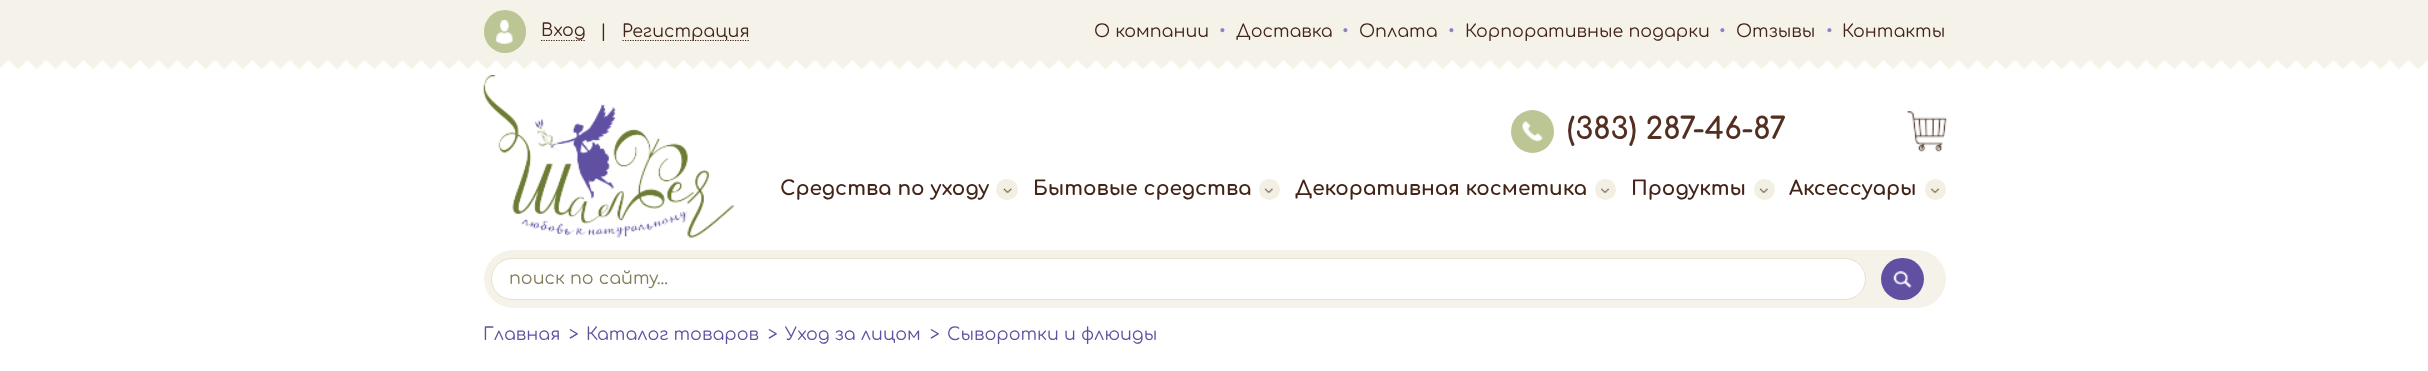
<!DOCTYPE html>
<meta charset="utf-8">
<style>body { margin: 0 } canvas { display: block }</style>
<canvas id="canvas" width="2428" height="371"></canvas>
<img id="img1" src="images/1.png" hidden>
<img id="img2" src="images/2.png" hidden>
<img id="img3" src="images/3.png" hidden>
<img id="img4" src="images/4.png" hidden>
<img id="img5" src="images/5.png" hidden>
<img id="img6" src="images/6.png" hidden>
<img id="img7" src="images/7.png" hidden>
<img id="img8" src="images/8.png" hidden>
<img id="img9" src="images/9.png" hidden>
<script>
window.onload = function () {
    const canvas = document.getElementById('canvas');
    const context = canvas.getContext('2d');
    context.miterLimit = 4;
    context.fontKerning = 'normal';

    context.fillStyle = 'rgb(255, 255, 255)';
    context.fillRect(0, 0, 2428, 371);
    context.fillStyle = 'rgb(245, 243, 233)';
    context.fillRect(0, 0, 2428, 70);
    context.fillStyle = 'rgb(187, 198, 148)';
    context.beginPath();
    context.roundRect(484, 10, 42, 43, 21);
    context.fill();
    context.drawImage(document.getElementById('img1'), 496, 20, 17, 24);
    context.beginPath();
    context.moveTo(541, 40.5);
    context.lineTo(585, 40.5);
    context.strokeStyle = 'rgb(67, 36, 24)';
    context.lineWidth = 1.2;
    context.setLineDash([1.25, 1.25]);
    context.stroke();
    context.beginPath();
    context.moveTo(622.5, 40.5);
    context.lineTo(750, 40.5);
    context.stroke();
    context.drawImage(document.getElementById('img2'), 0, 60, 2428, 10);
    context.drawImage(document.getElementById('img3'), 483, 75, 251, 163);
    context.beginPath();
    context.arc(1532.5, 131.5, 21.5, 0, 2 * Math.PI);
    context.fill();
    context.drawImage(document.getElementById('img4'), 1522, 121, 21, 21);
    context.drawImage(document.getElementById('img5'), 1907, 111, 40, 41);
    context.fillStyle = 'rgb(242, 239, 227)';
    context.beginPath();
    context.roundRect(996, 179, 22, 21, 10.5);
    context.fill();
    context.drawImage(document.getElementById('img6'), 1003, 188, 9, 5);
    context.beginPath();
    context.arc(1269.5, 189.5, 10.5, 0, 2 * Math.PI);
    context.fill();
    context.drawImage(document.getElementById('img7'), 1264, 188, 9, 5);
    context.beginPath();
    context.arc(1605.5, 189.5, 10.5, 0, 2 * Math.PI);
    context.fill();
    context.drawImage(document.getElementById('img8'), 1601, 188, 8, 5);
    context.beginPath();
    context.arc(1764.5, 189.5, 10.5, 0, 2 * Math.PI);
    context.fill();
    context.drawImage(document.getElementById('img7'), 1759, 188, 9, 5);
    context.beginPath();
    context.arc(1935.5, 189.5, 10.5, 0, 2 * Math.PI);
    context.fill();
    context.drawImage(document.getElementById('img8'), 1931, 188, 8, 5);
    context.fillStyle = 'rgb(245, 243, 233)';
    context.beginPath();
    context.roundRect(484, 250, 1462, 58, 29);
    context.fill();
    context.fillStyle = 'rgb(255, 255, 255)';
    context.beginPath();
    context.roundRect(491.5, 258.5, 1374, 41, 20.5);
    context.fill();
    context.strokeStyle = 'rgb(229, 225, 206)';
    context.lineWidth = 1;
    context.setLineDash([]);
    context.stroke();
    context.fillStyle = 'rgb(97, 80, 162)';
    context.beginPath();
    context.roundRect(1881, 258, 43, 42, 21);
    context.fill();
    context.drawImage(document.getElementById('img9'), 1893, 271, 19, 17);
    context.font = '17.5px Comfortaa';
    context.fillStyle = 'rgb(67, 36, 24)';
    context.fillText('Вход', 541, 36);
    context.fillText('|', 600, 37);
    context.fillText('Регистрация', 622, 37);
    context.fillText('О компании', 1094, 37);
    context.fillStyle = 'rgb(143, 129, 198)';
    context.fillText('•', 1219, 37);
    context.fillStyle = 'rgb(67, 36, 24)';
    context.fillText('Доставка', 1236, 37);
    context.fillStyle = 'rgb(143, 129, 198)';
    context.fillText('•', 1342, 37);
    context.fillStyle = 'rgb(67, 36, 24)';
    context.fillText('Оплата', 1359, 37);
    context.fillStyle = 'rgb(143, 129, 198)';
    context.fillText('•', 1448, 37);
    context.fillStyle = 'rgb(67, 36, 24)';
    context.fillText('Корпоративные подарки', 1465, 37);
    context.fillStyle = 'rgb(143, 129, 198)';
    context.fillText('•', 1719, 37);
    context.fillStyle = 'rgb(67, 36, 24)';
    context.fillText('Отзывы', 1736, 37);
    context.fillStyle = 'rgb(143, 129, 198)';
    context.fillText('•', 1826, 37);
    context.fillStyle = 'rgb(67, 36, 24)';
    context.fillText('Контакты', 1842, 37);
    context.font = 'bold 30px Comfortaa';
    context.fillStyle = 'rgb(83, 47, 34)';
    context.fillText('(383) 287-46-87', 1567, 139);
    context.font = 'bold 20px Comfortaa';
    context.fillStyle = 'rgb(67, 36, 24)';
    context.fillText('Средства по уходу', 780, 195);
    context.fillText('Бытовые средства', 1033, 195);
    context.fillText('Декоративная косметика', 1295, 195);
    context.fillText('Продукты', 1631, 195);
    context.fillText('Аксессуары', 1789, 195);
    context.font = '17.5px Comfortaa';
    context.fillStyle = 'rgb(132, 125, 89)';
    context.fillText('поиск по сайту...', 509, 284);
    context.fillStyle = 'rgb(97, 80, 162)';
    context.fillText('Главная', 483, 340);
    context.fillText('>', 569, 340);
    context.fillText('Каталог товаров', 586, 340);
    context.fillText('>', 768, 340);
    context.fillText('Уход за лицом', 785, 340);
    context.fillText('>', 930, 340);
    context.fillText('Сыворотки и флюиды', 947, 340);
};
</script>
